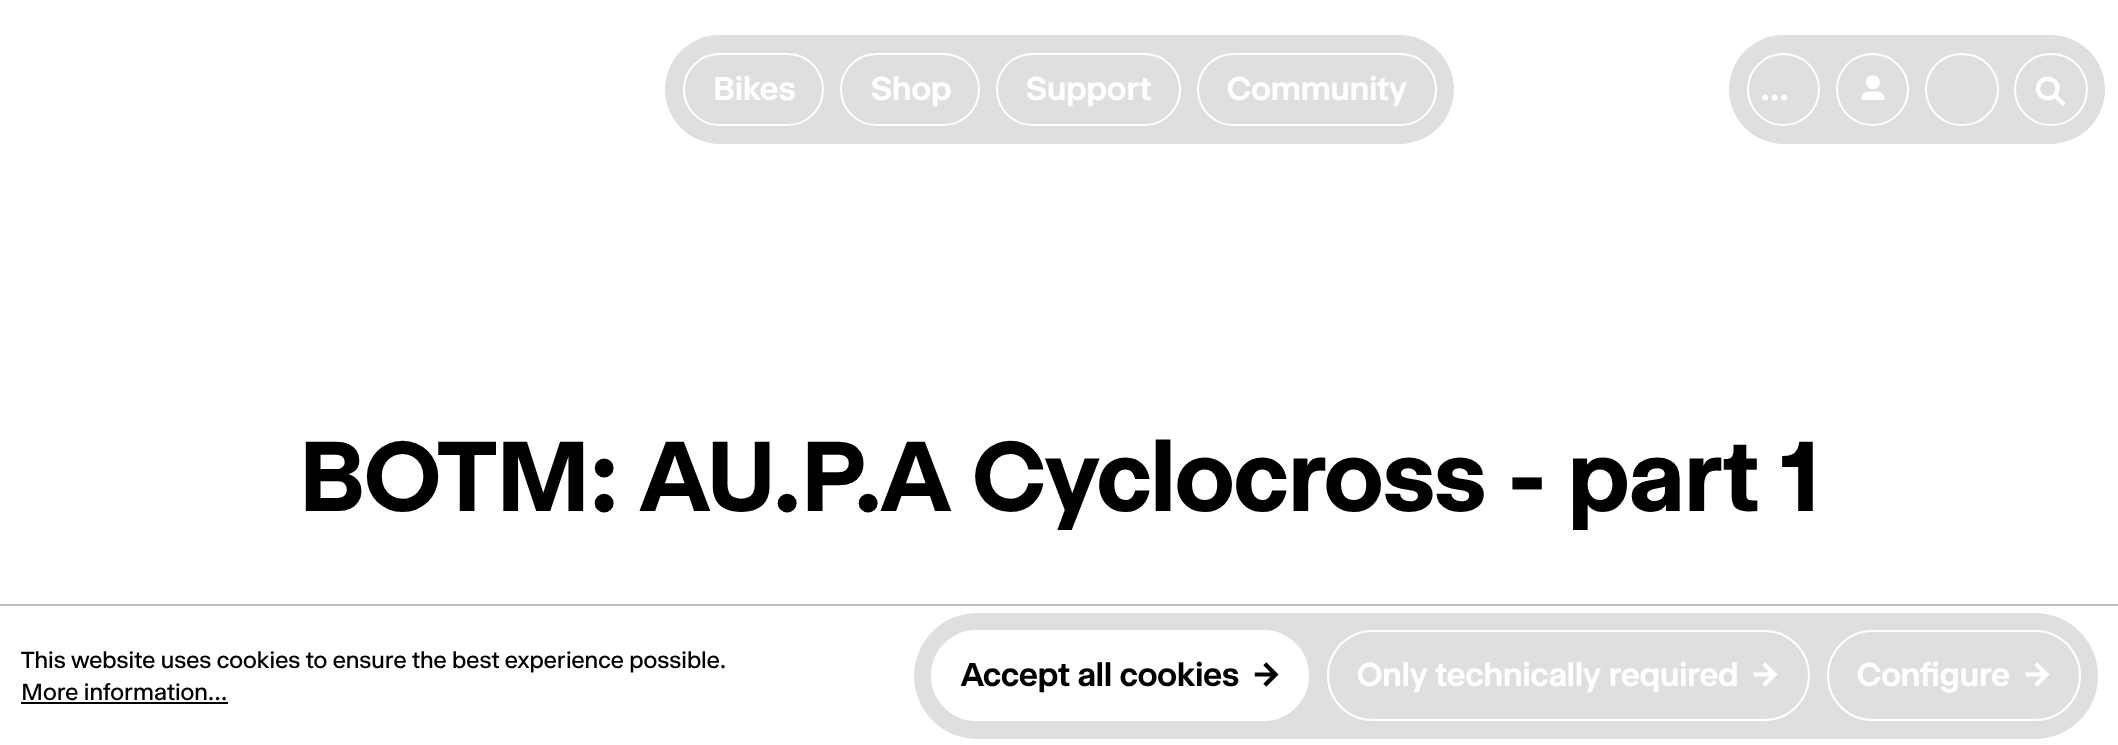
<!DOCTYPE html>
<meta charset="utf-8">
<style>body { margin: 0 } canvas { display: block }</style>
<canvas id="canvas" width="2118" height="745"></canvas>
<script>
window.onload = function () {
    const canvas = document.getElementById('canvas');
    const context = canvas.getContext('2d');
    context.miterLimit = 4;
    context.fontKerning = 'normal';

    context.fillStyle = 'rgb(255, 255, 255)';
    context.fillRect(0, 0, 2118, 745);
    context.fillStyle = 'rgb(223, 223, 223)';
    context.beginPath();
    context.roundRect(665, 35, 789, 109, 54.5);
    context.fill();
    context.beginPath();
    context.roundRect(684, 54, 139, 71, 35.5);
    context.strokeStyle = 'rgb(255, 255, 255)';
    context.lineWidth = 2;
    context.stroke();
    context.beginPath();
    context.roundRect(841, 54, 138, 71, 35.5);
    context.stroke();
    context.beginPath();
    context.roundRect(997, 54, 183, 71, 35.5);
    context.stroke();
    context.beginPath();
    context.roundRect(1198, 54, 238, 71, 35.5);
    context.stroke();
    context.beginPath();
    context.roundRect(1729, 35, 376, 109, 54.5);
    context.fill();
    context.beginPath();
    context.arc(1783.5, 89.5, 35.5, 0, 2 * Math.PI);
    context.stroke();
    context.beginPath();
    context.arc(1872.5, 89.5, 35.5, 0, 2 * Math.PI);
    context.stroke();
    context.beginPath();
    context.roundRect(1926, 54, 72, 71, 35.5);
    context.stroke();
    context.beginPath();
    context.roundRect(2015, 54, 72, 71, 35.5);
    context.stroke();
    context.fillStyle = 'rgb(191, 191, 191)';
    context.fillRect(0, 604, 2118, 2);
    context.fillStyle = 'rgb(0, 0, 0)';
    context.fillRect(21, 702, 207, 2);
    context.fillStyle = 'rgb(223, 223, 223)';
    context.beginPath();
    context.roundRect(914, 613, 1184, 126, 63);
    context.fill();
    context.fillStyle = 'rgb(255, 255, 255)';
    context.beginPath();
    context.roundRect(932, 631, 376, 89, 44.5);
    context.fill();
    context.stroke();
    context.beginPath();
    context.roundRect(1328, 631, 481, 89, 44.5);
    context.stroke();
    context.beginPath();
    context.roundRect(1828, 631, 252, 89, 44.5);
    context.stroke();
    context.font = '600 35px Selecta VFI';
    context.fillText('Bikes', 713, 100);
    context.fillText('Shop', 871, 100);
    context.fillText('Support', 1026, 100);
    context.fillText('Community', 1227, 100);
    context.fillText('…', 1761, 100);
    context.fillText('👤', 1859, 100);
    context.fillText('🔎', 2035, 100);
    context.font = 'bold 105px Selecta VFI';
    context.fillStyle = 'rgb(0, 0, 0)';
    context.fillText('BOTM: AU.P.A Cyclocross - part 1', 299, 511);
    context.font = '24.5px Selecta VFI';
    context.fillText('This website uses cookies to ensure the best experience possible.', 21, 668);
    context.fillText('More information...', 21, 700);
    context.font = '600 35px Selecta VFI';
    context.fillText('Accept all cookies', 961, 686);
    context.fillText('→', 1253, 686);
    context.fillStyle = 'rgb(255, 255, 255)';
    context.fillText('Only technically required', 1357, 686);
    context.fillText('→', 1752, 686);
    context.fillText('Configure', 1857, 686);
    context.fillText('→', 2024, 686);
};
</script>
